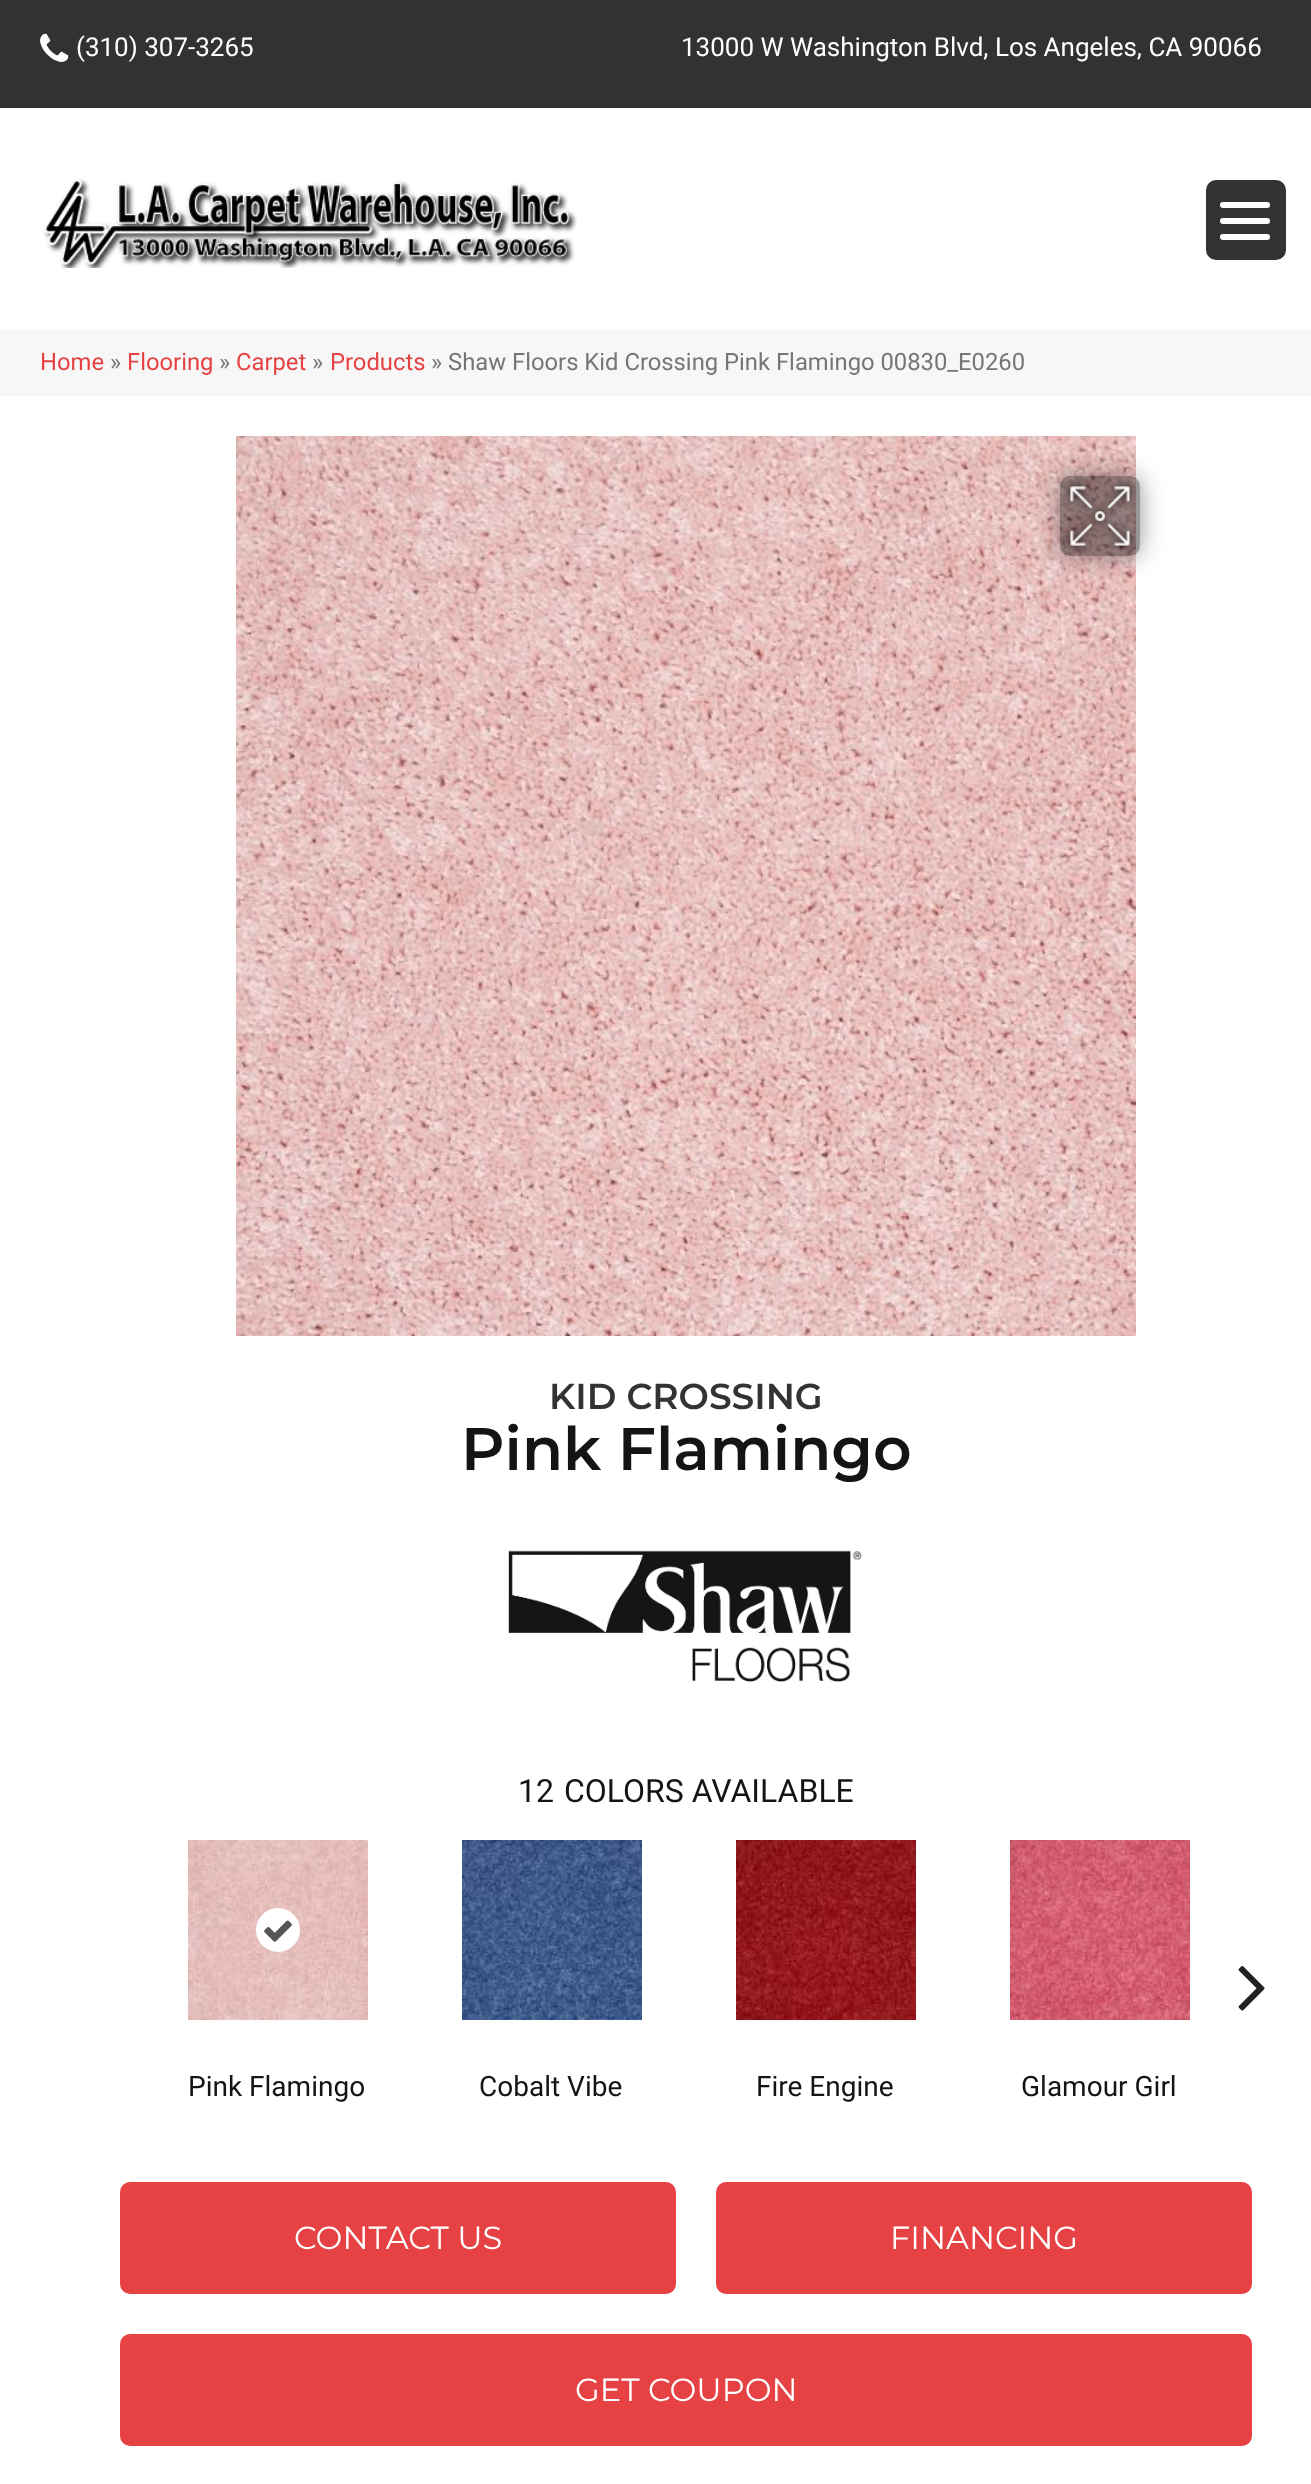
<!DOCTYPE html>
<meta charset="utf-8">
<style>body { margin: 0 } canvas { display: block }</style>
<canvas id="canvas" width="1311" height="2484"></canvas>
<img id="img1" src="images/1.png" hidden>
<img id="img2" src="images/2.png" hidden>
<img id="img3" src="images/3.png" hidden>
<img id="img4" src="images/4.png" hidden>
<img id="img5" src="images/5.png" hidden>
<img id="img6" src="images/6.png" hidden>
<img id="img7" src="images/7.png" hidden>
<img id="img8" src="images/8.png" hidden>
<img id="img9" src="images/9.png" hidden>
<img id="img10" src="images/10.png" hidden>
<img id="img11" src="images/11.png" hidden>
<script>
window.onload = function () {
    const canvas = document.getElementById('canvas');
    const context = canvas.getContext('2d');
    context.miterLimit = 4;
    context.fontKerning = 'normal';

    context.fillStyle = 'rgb(255, 255, 255)';
    context.fillRect(0, 0, 1311, 2484);
    context.fillStyle = 'rgb(50, 50, 50)';
    context.fillRect(0, 0, 1311, 108);
    context.drawImage(document.getElementById('img1'), 40, 33, 29, 29);
    context.drawImage(document.getElementById('img2'), 43, 178, 535, 90);
    context.fillStyle = 'rgb(247, 247, 247)';
    context.fillRect(0, 330, 1311, 66);
    context.drawImage(document.getElementById('img3'), 236, 436, 900, 900);
    context.save();
    context.beginPath();
    context.moveTo(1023, 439);
    context.lineTo(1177, 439);
    context.lineTo(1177, 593);
    context.lineTo(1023, 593);
    context.closePath();
    context.moveTo(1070, 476);
    context.lineTo(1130, 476);
    context.bezierCurveTo(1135.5, 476, 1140, 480.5, 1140, 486);
    context.lineTo(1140, 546);
    context.bezierCurveTo(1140, 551.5, 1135.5, 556, 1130, 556);
    context.lineTo(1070, 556);
    context.bezierCurveTo(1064.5, 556, 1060, 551.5, 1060, 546);
    context.lineTo(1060, 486);
    context.bezierCurveTo(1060, 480.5, 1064.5, 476, 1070, 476);
    context.closePath();
    context.clip('evenodd');
    context.fillStyle = 'rgba(0, 0, 0, 0.41)';
    context.filter = 'blur(12px)';
    context.beginPath();
    context.roundRect(1060, 476, 80, 80, 10);
    context.fill();
    context.filter = 'none';
    context.restore();
    context.fillStyle = 'rgba(0, 0, 0, 0.4)';
    context.beginPath();
    context.roundRect(1060, 476, 80, 80, 10);
    context.fill();
    context.drawImage(document.getElementById('img4'), 1063, 479, 74, 74);
    context.drawImage(document.getElementById('img5'), 508, 1550, 354, 132);
    context.drawImage(document.getElementById('img6'), 1238, 1966, 27, 45);
    context.drawImage(document.getElementById('img7'), 188, 1840, 180, 180);
    context.fillStyle = 'rgb(255, 255, 255)';
    context.beginPath();
    context.arc(278, 1930, 22, 0, 2 * Math.PI);
    context.fill();
    context.drawImage(document.getElementById('img8'), 264, 1920, 28, 22);
    context.drawImage(document.getElementById('img9'), 462, 1840, 180, 180);
    context.drawImage(document.getElementById('img10'), 736, 1840, 180, 180);
    context.drawImage(document.getElementById('img11'), 1010, 1840, 180, 180);
    context.fillStyle = 'rgb(230, 66, 67)';
    context.beginPath();
    context.roundRect(120, 2182, 556, 112, 10);
    context.fill();
    context.beginPath();
    context.roundRect(716, 2182, 536, 112, 10);
    context.fill();
    context.beginPath();
    context.roundRect(120, 2334, 1132, 112, 10);
    context.fill();
    context.fillStyle = 'rgb(51, 51, 51)';
    context.beginPath();
    context.roundRect(1206, 180, 80, 80, 10);
    context.fill();
    context.fillStyle = 'rgb(255, 255, 255)';
    context.beginPath();
    context.roundRect(1220, 218, 50, 6, 3);
    context.fill();
    context.beginPath();
    context.roundRect(1220, 202, 50, 6, 3);
    context.fill();
    context.beginPath();
    context.roundRect(1220, 234, 50, 6, 3);
    context.fill();
    context.font = '26px Roboto';
    context.fillText('(310) 307-3265', 76, 56);
    context.fillText('13000 W Washington Blvd, Los Angeles, CA 90066', 681, 56);
    context.font = '23.8px Roboto';
    context.fillStyle = 'rgb(230, 66, 67)';
    context.fillText('Home', 40, 370);
    context.fillStyle = 'rgb(117, 117, 117)';
    context.fillText('»', 110, 370);
    context.fillStyle = 'rgb(230, 66, 67)';
    context.fillText('Flooring', 127, 370);
    context.fillStyle = 'rgb(117, 117, 117)';
    context.fillText('»', 219, 370);
    context.fillStyle = 'rgb(230, 66, 67)';
    context.fillText('Carpet', 236, 370);
    context.fillStyle = 'rgb(117, 117, 117)';
    context.fillText('»', 312, 370);
    context.fillStyle = 'rgb(230, 66, 67)';
    context.fillText('Products', 330, 370);
    context.fillStyle = 'rgb(117, 117, 117)';
    context.fillText('» Shaw Floors Kid Crossing Pink Flamingo 00830_E0260', 431, 370);
    context.font = '600 36px Montserrat';
    context.fillStyle = 'rgb(51, 51, 51)';
    context.fillText('KID CROSSING', 549, 1409);
    context.font = '600 60px Montserrat';
    context.fillStyle = 'rgb(20, 20, 20)';
    context.fillText('Pink Flamingo', 461, 1470);
    context.font = '32px Roboto';
    context.fillText('12', 518, 1802);
    context.fillText('COLORS AVAILABLE', 564, 1802);
    context.font = '28px Roboto';
    context.fillText('Pink Flamingo', 188, 2096);
    context.fillText('Cobalt Vibe', 479, 2096);
    context.fillText('Fire Engine', 756, 2096);
    context.fillText('Glamour Girl', 1021, 2096);
    context.font = '32px Montserrat';
    context.fillStyle = 'rgb(255, 255, 255)';
    context.fillText('CONTACT US', 294, 2249);
    context.fillText('FINANCING', 890, 2249);
    context.fillText('GET COUPON', 575, 2401);
};
</script>
